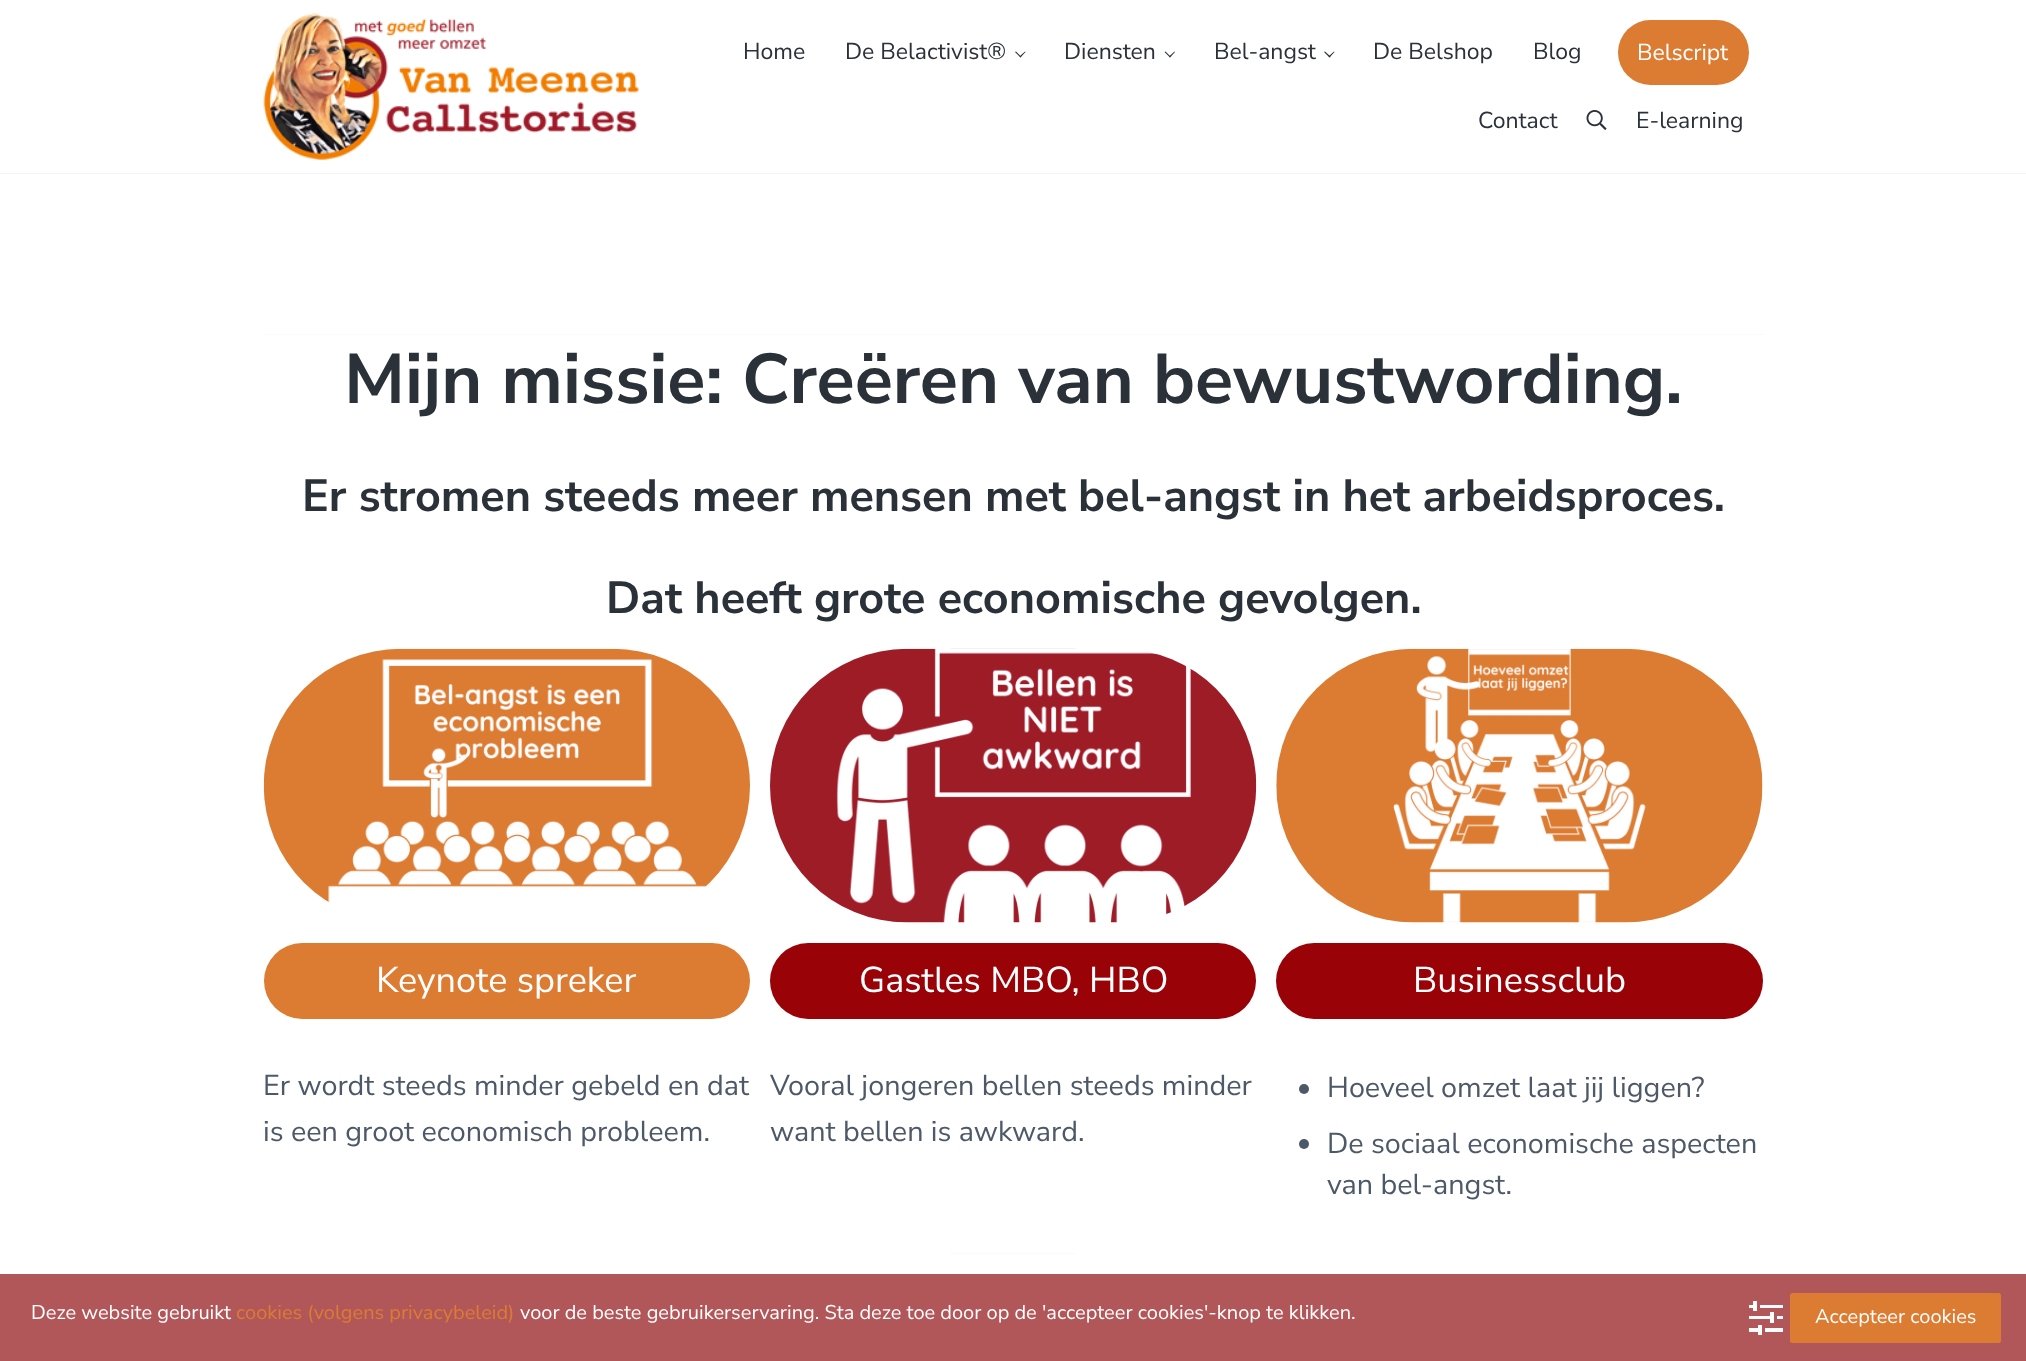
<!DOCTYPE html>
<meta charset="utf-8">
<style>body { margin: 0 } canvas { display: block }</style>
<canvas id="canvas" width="2026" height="1361"></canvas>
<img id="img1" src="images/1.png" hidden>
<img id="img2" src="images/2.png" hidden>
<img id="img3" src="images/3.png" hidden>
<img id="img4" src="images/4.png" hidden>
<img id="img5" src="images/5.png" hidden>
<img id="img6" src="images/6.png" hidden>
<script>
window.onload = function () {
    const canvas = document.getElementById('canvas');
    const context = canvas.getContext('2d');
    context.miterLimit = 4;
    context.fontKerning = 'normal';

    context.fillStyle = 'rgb(255, 255, 255)';
    context.fillRect(0, 0, 2026, 1361);
    context.fillStyle = 'rgb(243, 243, 244)';
    context.fillRect(0, 173, 2026, 1);
    context.drawImage(document.getElementById('img1'), 263, 12, 376, 148);
    context.fillStyle = 'rgb(42, 49, 57)';
    context.beginPath();
    context.moveTo(1025, 51.5);
    context.lineTo(1025.5, 52);
    context.lineTo(1020.5, 57.5);
    context.lineTo(1019.5, 56.5);
    context.closePath();
    context.fill();
    context.beginPath();
    context.moveTo(1016, 51.5);
    context.lineTo(1021, 56.5);
    context.lineTo(1020.5, 57.5);
    context.lineTo(1015, 52);
    context.closePath();
    context.fill();
    context.beginPath();
    context.moveTo(1174.5, 51.5);
    context.lineTo(1175, 52);
    context.lineTo(1170, 57.5);
    context.lineTo(1169, 56.5);
    context.closePath();
    context.fill();
    context.beginPath();
    context.moveTo(1165.5, 51.5);
    context.lineTo(1170.5, 56.5);
    context.lineTo(1170, 57.5);
    context.lineTo(1164.5, 52);
    context.closePath();
    context.fill();
    context.beginPath();
    context.moveTo(1334, 51.5);
    context.lineTo(1334.5, 52);
    context.lineTo(1329.5, 57.5);
    context.lineTo(1328.5, 56.5);
    context.closePath();
    context.fill();
    context.beginPath();
    context.moveTo(1325, 51.5);
    context.lineTo(1330.5, 56.5);
    context.lineTo(1329.5, 57.5);
    context.lineTo(1324, 52);
    context.closePath();
    context.fill();
    context.fillStyle = 'rgb(220, 123, 50)';
    context.beginPath();
    context.roundRect(1618, 20, 131, 65, 32.5);
    context.fill();
    context.drawImage(document.getElementById('img2'), 1586, 110, 21, 20);
    context.fillStyle = 'rgb(250, 250, 251)';
    context.fillRect(264, 334, 1500, 1);
    context.fillStyle = 'rgb(243, 243, 244)';
    context.fillRect(951, 648, 125, 1);
    context.drawImage(document.getElementById('img3'), 263, 648, 487, 255);
    context.fillStyle = 'rgb(220, 123, 50)';
    context.beginPath();
    context.roundRect(264, 943, 486, 76, 38);
    context.fill();
    context.drawImage(document.getElementById('img4'), 770, 648, 487, 275);
    context.fillStyle = 'rgb(153, 3, 8)';
    context.beginPath();
    context.roundRect(770, 943, 486, 76, 38);
    context.fill();
    context.drawImage(document.getElementById('img5'), 1276, 648, 487, 275);
    context.beginPath();
    context.roundRect(1276, 943, 487, 76, 38);
    context.fill();
    context.fillStyle = 'rgb(77, 89, 104)';
    context.beginPath();
    context.arc(1304, 1089, 5, 0, 2 * Math.PI);
    context.fill();
    context.beginPath();
    context.arc(1304, 1144, 5, 0, 2 * Math.PI);
    context.fill();
    context.fillStyle = 'rgb(250, 250, 251)';
    context.fillRect(951, 1253, 125, 1);
    context.fillStyle = 'rgba(158, 45, 49, 0.8)';
    context.fillRect(0, 1274, 2026, 87);
    context.drawImage(document.getElementById('img6'), 1749, 1301, 34, 34);
    context.fillStyle = 'rgb(220, 123, 50)';
    context.beginPath();
    context.roundRect(1790, 1293, 211, 50, 2.5);
    context.fill();
    context.font = '23px Nunito Sans';
    context.fillStyle = 'rgb(42, 49, 57)';
    context.fillText('Home', 743, 59);
    context.fillText('De Belactivist®', 845, 59);
    context.fillText('Diensten', 1064, 59);
    context.fillText('Bel-angst', 1214, 59);
    context.fillText('De Belshop', 1373, 59);
    context.fillText('Blog', 1533, 59);
    context.fillStyle = 'rgb(255, 255, 255)';
    context.fillText('Belscript', 1637, 60);
    context.fillStyle = 'rgb(42, 49, 57)';
    context.fillText('Contact', 1478, 128);
    context.fillText('E-learning', 1636, 128);
    context.font = 'bold 70.3px Nunito Sans';
    context.fillText('Mijn missie: Creëren van bewustwording.', 344, 403);
    context.font = 'bold 45px Nunito Sans';
    context.fillText('Er stromen steeds meer mensen met bel-angst in het arbeidsproces.', 302, 511);
    context.fillText('Dat heeft grote economische gevolgen.', 606, 613);
    context.font = '36px Nunito Sans';
    context.fillStyle = 'rgb(255, 255, 255)';
    context.fillText('Keynote spreker', 376, 992);
    context.font = '28.75px Nunito Sans';
    context.fillStyle = 'rgb(77, 89, 104)';
    context.fillText('Er wordt steeds minder gebeld en dat', 263, 1095);
    context.fillText('is een groot economisch probleem.', 263, 1141);
    context.font = '36px Nunito Sans';
    context.fillStyle = 'rgb(255, 255, 255)';
    context.fillText('Gastles MBO, HBO', 859, 992);
    context.font = '28.75px Nunito Sans';
    context.fillStyle = 'rgb(77, 89, 104)';
    context.fillText('Vooral jongeren bellen steeds minder', 770, 1095);
    context.fillText('want bellen is awkward.', 770, 1141);
    context.font = '36px Nunito Sans';
    context.fillStyle = 'rgb(255, 255, 255)';
    context.fillText('Businessclub', 1413, 992);
    context.font = '28.75px Nunito Sans';
    context.fillStyle = 'rgb(77, 89, 104)';
    context.fillText('Hoeveel omzet laat jij liggen?', 1327, 1097);
    context.fillText('De sociaal economische aspecten', 1327, 1153);
    context.fillText('van bel-angst.', 1327, 1194);
    context.font = '20px Nunito Sans';
    context.fillStyle = 'rgb(255, 255, 255)';
    context.fillText('Deze website gebruikt', 31, 1319);
    context.fillStyle = 'rgb(220, 123, 50)';
    context.fillText('cookies (volgens privacybeleid)', 236, 1319);
    context.fillStyle = 'rgb(255, 255, 255)';
    context.fillText('voor de beste gebruikerservaring. Sta deze toe door op de \'accepteer cookies\'-knop te klikken.', 520, 1319);
    context.fillText('Accepteer cookies', 1815, 1323);
};
</script>
